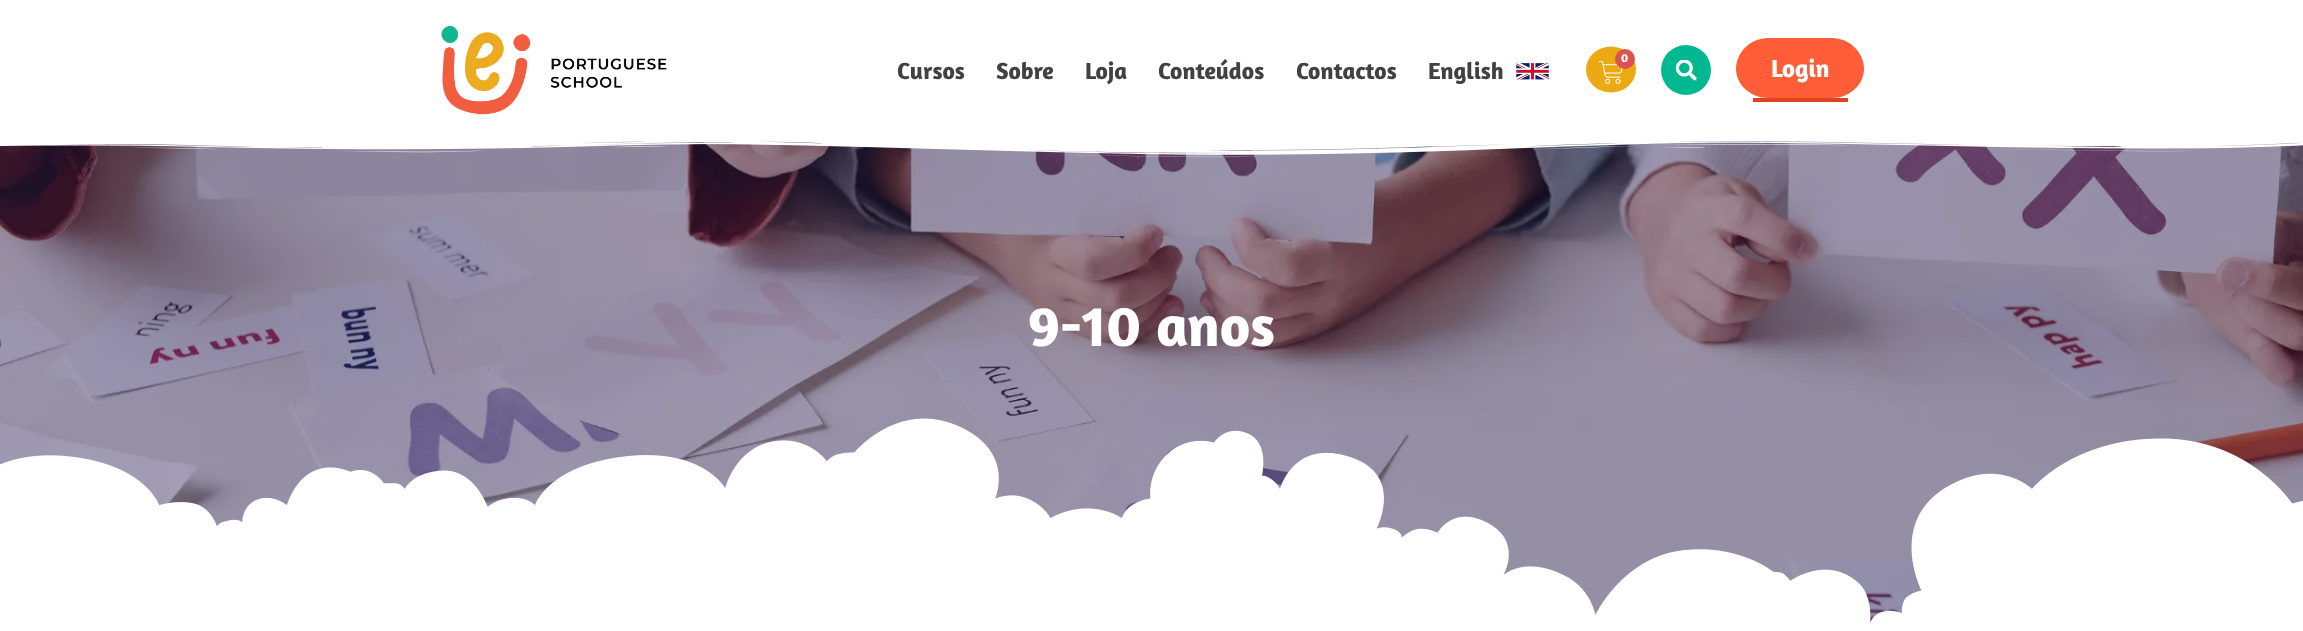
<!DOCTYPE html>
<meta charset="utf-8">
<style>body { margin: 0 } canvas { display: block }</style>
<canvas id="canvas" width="2303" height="631"></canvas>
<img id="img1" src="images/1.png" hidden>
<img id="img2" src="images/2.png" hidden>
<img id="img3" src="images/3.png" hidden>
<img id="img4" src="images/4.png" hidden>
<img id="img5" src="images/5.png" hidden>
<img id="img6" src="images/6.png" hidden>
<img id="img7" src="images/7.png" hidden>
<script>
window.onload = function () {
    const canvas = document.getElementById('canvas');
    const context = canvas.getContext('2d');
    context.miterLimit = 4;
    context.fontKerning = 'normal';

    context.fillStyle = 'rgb(255, 255, 255)';
    context.fillRect(0, 0, 2303, 631);
    context.drawImage(document.getElementById('img1'), 441, 25, 226, 90);
    context.drawImage(document.getElementById('img2'), 1516, 63, 33, 17);
    context.fillStyle = 'rgb(236, 170, 18)';
    context.beginPath();
    context.ellipse(1611, 69.5, 25, 23, 0, 0, 2 * Math.PI);
    context.fill();
    context.drawImage(document.getElementById('img3'), 1599, 61, 24, 23);
    context.fillStyle = 'rgb(217, 83, 79)';
    context.beginPath();
    context.arc(1625, 59, 10, 0, 2 * Math.PI);
    context.fill();
    context.fillStyle = 'rgb(2, 184, 144)';
    context.beginPath();
    context.arc(1686, 70, 25, 0, 2 * Math.PI);
    context.fill();
    context.drawImage(document.getElementById('img4'), 1676, 60, 21, 21);
    context.fillStyle = 'rgb(254, 93, 55)';
    context.beginPath();
    context.moveTo(1768, 38);
    context.lineTo(1832, 38);
    context.bezierCurveTo(1849, 38, 1864, 52, 1864, 69);
    context.bezierCurveTo(1864, 85, 1849, 98, 1832, 98);
    context.lineTo(1768, 98);
    context.bezierCurveTo(1751, 98, 1736, 85, 1736, 69);
    context.bezierCurveTo(1736, 52, 1751, 38, 1768, 38);
    context.closePath();
    context.fill();
    context.fillStyle = 'rgb(221, 67, 30)';
    context.fillRect(1753, 98, 95, 4);
    context.drawImage(document.getElementById('img5'), 0, 141, 2303, 482);
    context.drawImage(document.getElementById('img6'), 0, 140, 2303, 18);
    context.drawImage(document.getElementById('img7'), 0, 418, 2303, 213);
    context.font = 'bold 23.75px Amaranth';
    context.fillStyle = 'rgb(65, 65, 65)';
    context.fillText('Cursos', 897, 79);
    context.fillText('Sobre', 996, 79);
    context.fillText('Loja', 1085, 79);
    context.fillText('Conteúdos', 1158, 79);
    context.fillText('Contactos', 1296, 79);
    context.fillText('English', 1428, 79);
    context.font = 'bold 12px Amaranth';
    context.fillStyle = 'rgb(255, 255, 255)';
    context.fillText('0', 1621, 62);
    context.font = 'bold 25px Amaranth';
    context.fillText('Login', 1771, 77);
    context.font = 'bold 58.75px Amaranth';
    context.fillText('9-10 anos', 1028, 346);
};
</script>
